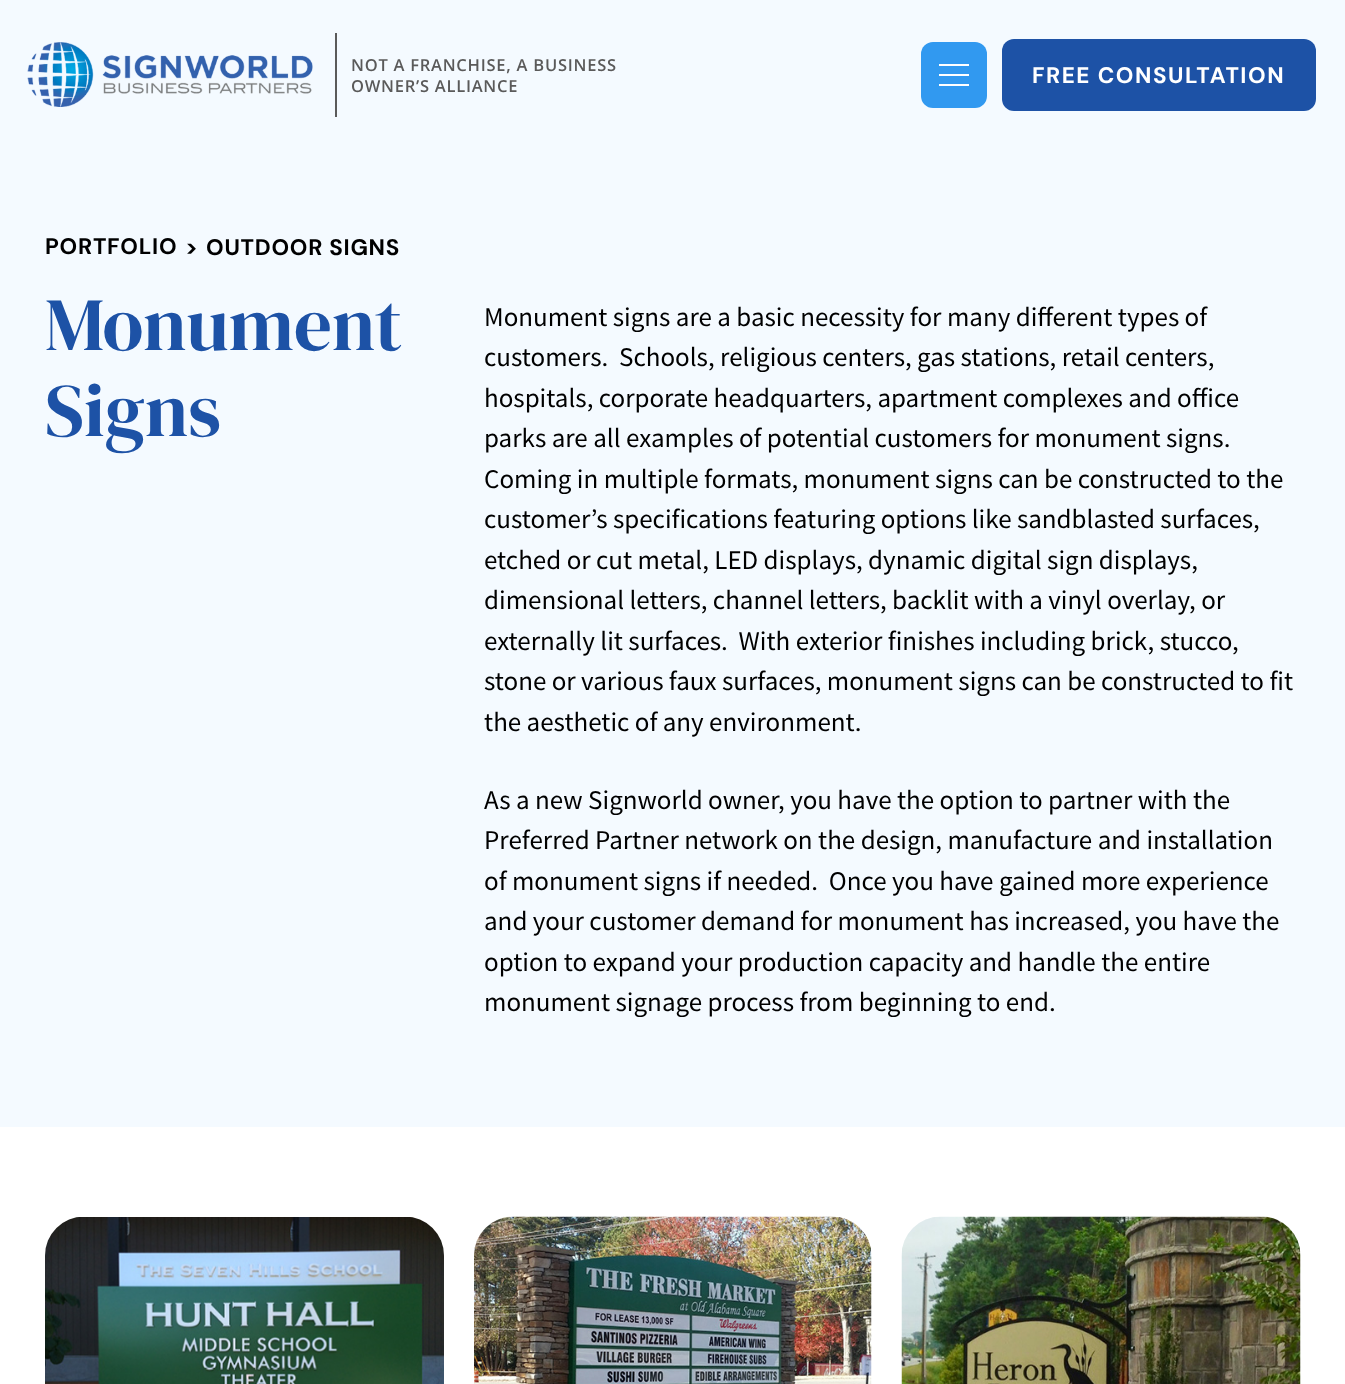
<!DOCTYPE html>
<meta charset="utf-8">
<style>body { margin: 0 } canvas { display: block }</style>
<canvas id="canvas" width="1345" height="1384"></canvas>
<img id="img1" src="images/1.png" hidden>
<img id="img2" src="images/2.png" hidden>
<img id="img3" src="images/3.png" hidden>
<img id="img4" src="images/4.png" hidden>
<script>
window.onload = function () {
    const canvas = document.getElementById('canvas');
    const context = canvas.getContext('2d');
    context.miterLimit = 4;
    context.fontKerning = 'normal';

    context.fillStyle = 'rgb(255, 255, 255)';
    context.fillRect(0, 0, 1345, 1384);
    context.fillStyle = 'rgb(244, 250, 255)';
    context.fillRect(0, 0, 1345, 1127);
    context.fillStyle = 'rgb(90, 90, 90)';
    context.fillRect(335, 33, 2, 84);
    context.drawImage(document.getElementById('img1'), 27, 42, 286, 65);
    context.fillStyle = 'rgb(49, 153, 240)';
    context.beginPath();
    context.roundRect(921, 42, 66, 66, 12);
    context.fill();
    context.fillStyle = 'rgb(255, 255, 255)';
    context.fillRect(939, 64, 30, 2);
    context.fillRect(939, 74, 30, 2);
    context.fillRect(939, 84, 30, 2);
    context.fillStyle = 'rgb(29, 82, 166)';
    context.beginPath();
    context.roundRect(1002, 39, 314, 72, 12);
    context.fill();
    context.drawImage(document.getElementById('img2'), 45, 1217, 399, 167);
    context.drawImage(document.getElementById('img3'), 474, 1216, 398, 168);
    context.drawImage(document.getElementById('img4'), 901, 1216, 400, 168);
    context.letterSpacing = '0.75px';
    context.font = '600 16.5px Open Sans';
    context.fillStyle = 'rgb(90, 90, 90)';
    context.fillText('NOT A FRANCHISE, A BUSINESS', 351, 71);
    context.fillText('OWNER’S ALLIANCE', 351, 92);
    context.letterSpacing = '1.5px';
    context.font = 'bold 22.5px DM Sans';
    context.fillStyle = 'rgb(255, 255, 255)';
    context.fillText('FREE CONSULTATION', 1032, 83);
    context.letterSpacing = '0.75px';
    context.fillStyle = 'rgb(0, 0, 0)';
    context.fillText('PORTFOLIO', 45, 254);
    context.fillText('>', 185, 255);
    context.fillText('OUTDOOR SIGNS', 206, 255);
    context.letterSpacing = '0px';
    context.font = '75px DM Serif Display';
    context.fillStyle = 'rgb(29, 82, 166)';
    context.fillText('Monument', 45, 350);
    context.fillText('Signs', 45, 436);
    context.font = '27px Source Sans Pro';
    context.fillStyle = 'rgb(0, 0, 0)';
    context.fillText('Monument signs are a basic necessity for many different types of', 484, 326);
    context.fillText('customers.  Schools, religious centers, gas stations, retail centers,', 484, 366);
    context.fillText('hospitals, corporate headquarters, apartment complexes and office', 484, 407);
    context.fillText('parks are all examples of potential customers for monument signs.', 484, 447);
    context.fillText('Coming in multiple formats, monument signs can be constructed to the', 484, 488);
    context.fillText('customer’s specifications featuring options like sandblasted surfaces,', 484, 528);
    context.fillText('etched or cut metal, LED displays, dynamic digital sign displays,', 484, 569);
    context.fillText('dimensional letters, channel letters, backlit with a vinyl overlay, or', 484, 609);
    context.fillText('externally lit surfaces.  With exterior finishes including brick, stucco,', 484, 650);
    context.fillText('stone or various faux surfaces, monument signs can be constructed to fit', 484, 690);
    context.fillText('the aesthetic of any environment.', 484, 731);
    context.fillText('As a new Signworld owner, you have the option to partner with the', 484, 809);
    context.fillText('Preferred Partner network on the design, manufacture and installation', 484, 849);
    context.fillText('of monument signs if needed.  Once you have gained more experience', 484, 890);
    context.fillText('and your customer demand for monument has increased, you have the', 484, 930);
    context.fillText('option to expand your production capacity and handle the entire', 484, 971);
    context.fillText('monument signage process from beginning to end.', 484, 1011);
};
</script>
